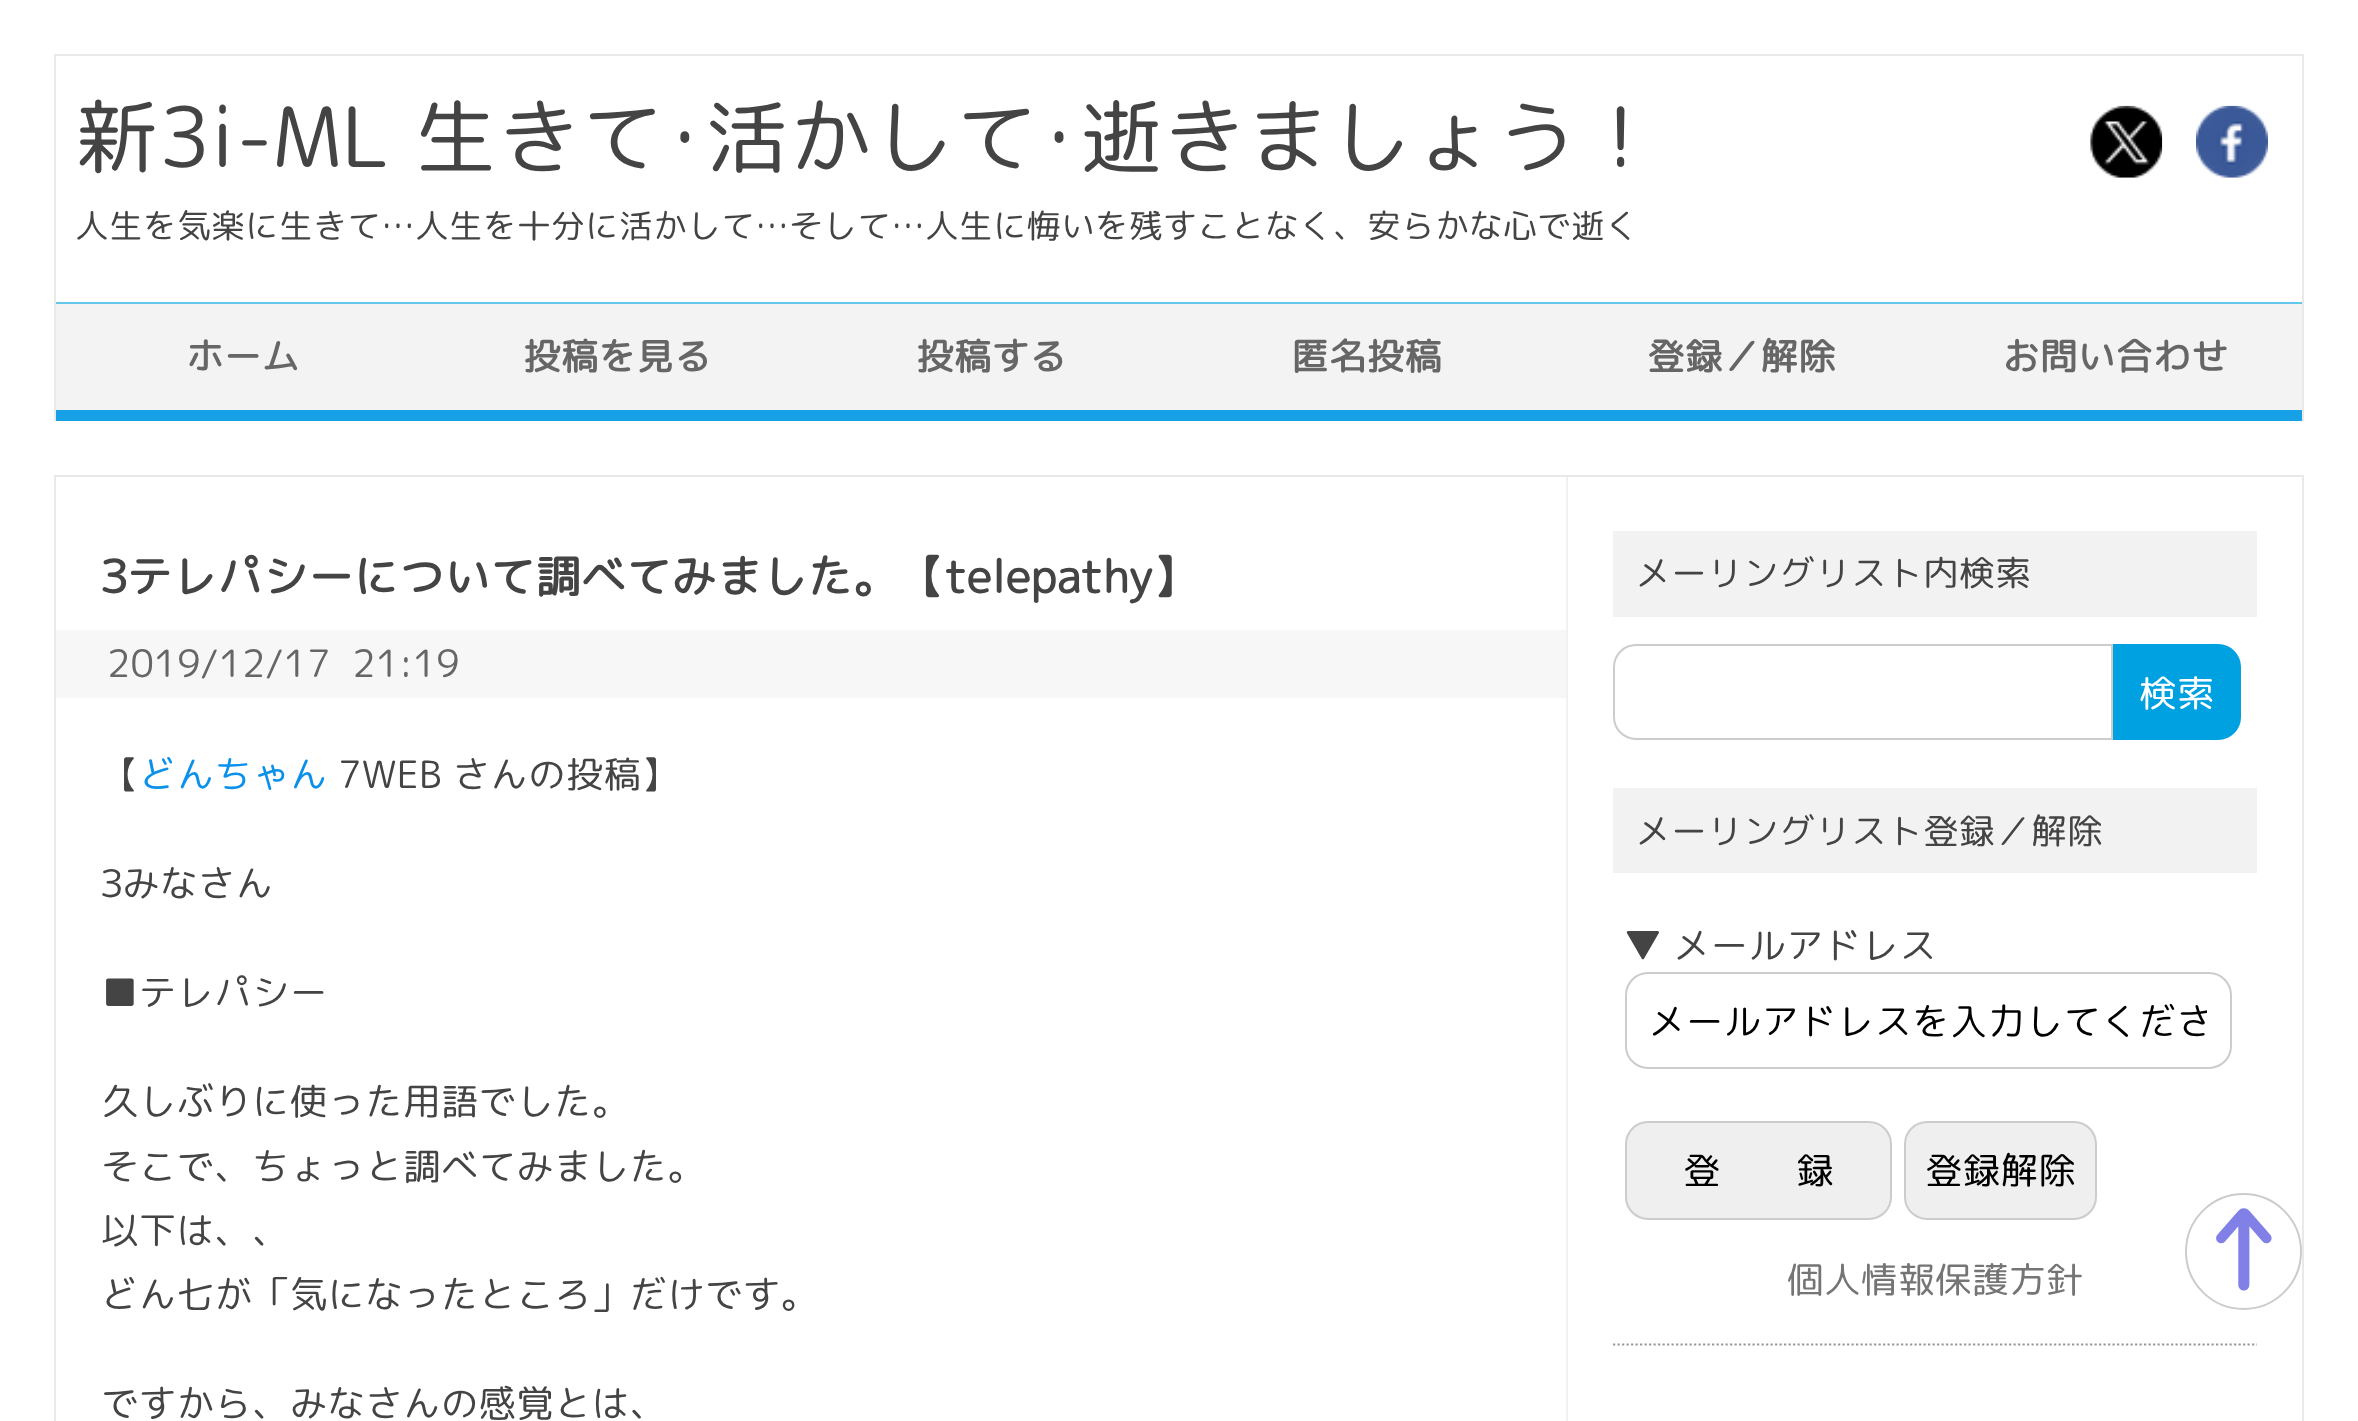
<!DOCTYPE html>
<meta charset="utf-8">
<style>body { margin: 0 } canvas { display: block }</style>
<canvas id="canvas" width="2358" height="1421"></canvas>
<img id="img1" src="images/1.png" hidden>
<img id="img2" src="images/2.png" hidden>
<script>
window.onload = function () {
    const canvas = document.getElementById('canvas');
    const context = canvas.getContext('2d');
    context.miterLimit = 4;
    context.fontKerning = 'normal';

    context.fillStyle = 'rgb(255, 255, 255)';
    context.fillRect(0, 0, 2358, 1421);
    context.fillStyle = 'rgb(233, 233, 233)';
    context.fillRect(54, 54, 2250, 2);
    context.fillRect(2302, 54, 2, 367);
    context.fillRect(54, 54, 2, 367);
    context.drawImage(document.getElementById('img1'), 2090, 105, 73, 73);
    context.drawImage(document.getElementById('img2'), 2196, 105, 72, 73);
    context.fillStyle = 'rgb(243, 243, 243)';
    context.fillRect(56, 304, 2246, 106);
    context.fillStyle = 'rgb(102, 199, 236)';
    context.fillRect(56, 302, 2246, 2);
    context.fillStyle = 'rgb(22, 161, 231)';
    context.fillRect(56, 410, 2246, 11);
    context.strokeStyle = 'rgb(233, 233, 233)';
    context.lineWidth = 2;
    context.strokeRect(55, 476, 2248, 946);
    context.fillStyle = 'rgb(241, 241, 241)';
    context.fillRect(1566, 477, 2, 944);
    context.fillStyle = 'rgb(247, 247, 247)';
    context.fillRect(56, 630, 1510, 68);
    context.fillStyle = 'rgb(242, 242, 242)';
    context.fillRect(1613, 531, 644, 86);
    context.beginPath();
    context.roundRect(1614, 645, 498, 94, [22, 0, 0, 22]);
    context.strokeStyle = 'rgb(204, 204, 204)';
    context.stroke();
    context.fillStyle = 'rgb(0, 161, 224)';
    context.beginPath();
    context.roundRect(2114, 645, 126, 94, [0, 22, 22, 0]);
    context.fill();
    context.strokeStyle = 'rgb(0, 161, 224)';
    context.stroke();
    context.beginPath();
    context.moveTo(1613, 1344.5);
    context.lineTo(2257, 1344.5);
    context.strokeStyle = 'rgb(153, 153, 153)';
    context.lineWidth = 2.2;
    context.setLineDash([2.25, 2.25]);
    context.stroke();
    context.fillStyle = 'rgb(242, 242, 242)';
    context.fillRect(1613, 788, 644, 85);
    context.beginPath();
    context.roundRect(1626, 973, 605, 95, 22);
    context.strokeStyle = 'rgb(204, 204, 204)';
    context.lineWidth = 2;
    context.setLineDash([]);
    context.stroke();
    context.fillStyle = 'rgb(239, 239, 239)';
    context.beginPath();
    context.roundRect(1626, 1122, 265, 97, 22);
    context.fill();
    context.stroke();
    context.beginPath();
    context.roundRect(1905, 1122, 191, 97, 22);
    context.fill();
    context.stroke();
    context.beginPath();
    context.arc(2243.5, 1251.5, 57.5, 0, 2 * Math.PI);
    context.stroke();
    context.font = '83.2px "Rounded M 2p"';
    context.fillStyle = 'rgb(68, 68, 68)';
    context.fillText('新3i-ML 生きて･活かして･逝きましょう！', 75, 167);
    context.font = '34px "Rounded M 2p"';
    context.fillText('人生を気楽に生きて…人生を十分に活かして…そして…人生に悔いを残すことなく、安らかな心で逝く', 75, 238);
    context.font = 'bold 37.75px "Rounded M 2p"';
    context.fillStyle = 'rgb(102, 102, 102)';
    context.fillText('ホーム', 186, 370);
    context.fillText('投稿を見る', 523, 370);
    context.fillText('投稿する', 916, 370);
    context.fillText('匿名投稿', 1291, 370);
    context.fillText('登録／解除', 1647, 370);
    context.fillText('お問い合わせ', 2002, 370);
    context.font = 'bold 45.4px "Rounded M 2p"';
    context.fillStyle = 'rgb(68, 68, 68)';
    context.fillText('Зテレパシーについて調べてみました。【telepathy】', 101, 593);
    context.font = '37.75px "Rounded M 2p"';
    context.fillStyle = 'rgb(102, 102, 102)';
    context.fillText('2019/12/17  21:19', 107, 677);
    context.fillStyle = 'rgb(68, 68, 68)';
    context.fillText('【', 101, 788);
    context.fillStyle = 'rgb(11, 145, 234)';
    context.fillText('どんちゃん', 139, 788);
    context.fillStyle = 'rgb(68, 68, 68)';
    context.fillText('7WEB さんの投稿】', 338, 788);
    context.fillText('Зみなさん', 101, 897);
    context.fillText('■テレパシー', 101, 1006);
    context.fillText('久しぶりに使った用語でした。', 101, 1115);
    context.fillText('そこで、ちょっと調べてみました。', 101, 1180);
    context.fillText('以下は、、', 101, 1244);
    context.fillText('どん七が「気になったところ」だけです。', 101, 1308);
    context.fillText('ですから、みなさんの感覚とは、', 101, 1417);
    context.font = '36px "Rounded M 2p"';
    context.fillText('メーリングリスト内検索', 1635, 586);
    context.font = '37.75px "Rounded M 2p"';
    context.fillStyle = 'rgb(255, 255, 255)';
    context.fillText('検索', 2139, 707);
    context.font = '36px "Rounded M 2p"';
    context.fillStyle = 'rgb(68, 68, 68)';
    context.fillText('メーリングリスト登録／解除', 1635, 844);
    context.font = '37.75px "Rounded M 2p"';
    context.fillText('▼ メールアドレス', 1624, 959);
    context.save();
    context.beginPath();
    context.rect(1649, 992, 558, 57);
    context.clip();
    context.fillStyle = 'rgb(0, 0, 0)';
    context.fillText('メールアドレスを入力してくださ', 1648, 1035);
    context.restore();
    context.fillStyle = 'rgb(0, 0, 0)';
    context.fillText('登　　録', 1683, 1184);
    context.fillText('登録解除', 1925, 1184);
    context.font = '37px "Rounded M 2p"';
    context.fillStyle = 'rgb(117, 117, 117)';
    context.fillText('個人情報保護方針', 1787, 1293);
    context.font = 'bold 113px "Rounded M 2p"';
    context.fillStyle = 'rgb(128, 128, 230)';
    context.fillText('↑', 2201, 1293);
};
</script>
